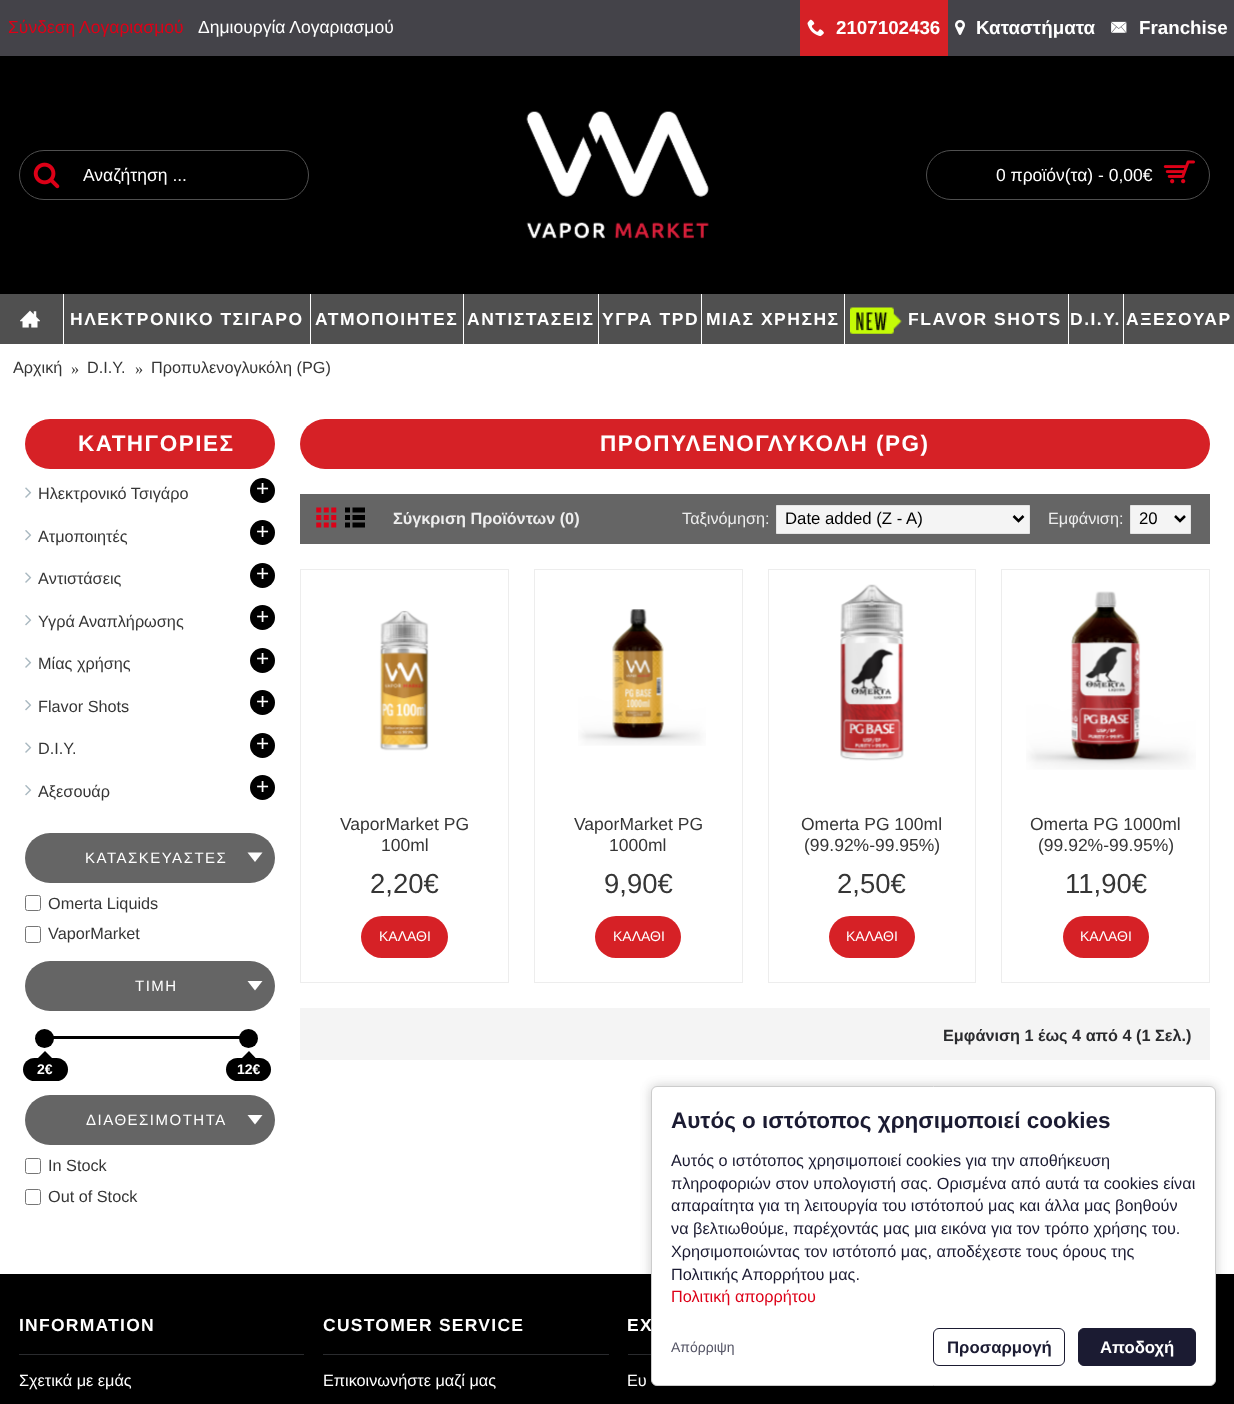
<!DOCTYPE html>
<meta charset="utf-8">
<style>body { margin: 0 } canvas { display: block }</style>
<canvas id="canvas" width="1234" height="1404"></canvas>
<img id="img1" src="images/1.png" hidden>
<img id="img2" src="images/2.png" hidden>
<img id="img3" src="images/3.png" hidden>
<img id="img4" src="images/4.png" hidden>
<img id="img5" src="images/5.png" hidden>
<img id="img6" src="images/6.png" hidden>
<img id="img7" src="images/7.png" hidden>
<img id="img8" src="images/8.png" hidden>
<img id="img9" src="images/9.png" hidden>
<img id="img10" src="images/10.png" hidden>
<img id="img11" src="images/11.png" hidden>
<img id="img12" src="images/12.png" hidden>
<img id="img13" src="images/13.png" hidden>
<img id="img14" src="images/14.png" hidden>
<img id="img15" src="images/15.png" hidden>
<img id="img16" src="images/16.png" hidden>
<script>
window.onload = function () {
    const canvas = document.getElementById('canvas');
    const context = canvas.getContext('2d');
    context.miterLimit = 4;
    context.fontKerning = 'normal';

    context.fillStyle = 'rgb(255, 255, 255)';
    context.fillRect(0, 0, 1234, 1404);
    context.fillStyle = 'rgb(0, 0, 0)';
    context.fillRect(0, 56, 1234, 238);
    context.fillStyle = 'rgb(68, 67, 73)';
    context.fillRect(0, 0, 1234, 56);
    context.fillStyle = 'rgb(214, 33, 38)';
    context.fillRect(800, 0, 148, 56);
    context.drawImage(document.getElementById('img1'), 807, 19, 17, 18);
    context.drawImage(document.getElementById('img2'), 955, 20, 10, 15);
    context.drawImage(document.getElementById('img3'), 1111, 21, 16, 12);
    context.beginPath();
    context.roundRect(19.5, 150.5, 289, 49, 24.5);
    context.strokeStyle = 'rgb(80, 80, 80)';
    context.stroke();
    context.drawImage(document.getElementById('img4'), 33, 162, 27, 27);
    context.drawImage(document.getElementById('img5'), 526, 111, 183, 128);
    context.beginPath();
    context.roundRect(926.5, 150.5, 283, 49, 24.5);
    context.stroke();
    context.drawImage(document.getElementById('img6'), 1163, 160, 32, 24);
    context.fillStyle = 'rgb(80, 80, 80)';
    context.fillRect(0, 294, 1234, 50);
    context.drawImage(document.getElementById('img7'), 20, 310, 20, 18);
    context.fillStyle = 'rgb(255, 255, 255)';
    context.fillRect(63, 294, 1, 50);
    context.fillRect(310, 294, 1, 50);
    context.fillRect(463, 294, 1, 50);
    context.fillRect(598, 294, 1, 50);
    context.fillRect(701, 294, 1, 50);
    context.fillRect(844, 294, 1, 50);
    context.drawImage(document.getElementById('img8'), 850, 307, 52, 27);
    context.fillRect(1068, 294, 1, 50);
    context.fillRect(1123, 294, 1, 50);
    context.fillStyle = 'rgb(214, 33, 38)';
    context.beginPath();
    context.roundRect(25, 419, 250, 50, 25);
    context.fill();
    context.drawImage(document.getElementById('img9'), 25, 487, 7, 11);
    context.fillStyle = 'rgb(0, 0, 0)';
    context.beginPath();
    context.arc(262.5, 490.5, 12.5, 0, 2 * Math.PI);
    context.fill();
    context.drawImage(document.getElementById('img10'), 25, 530, 7, 11);
    context.beginPath();
    context.arc(262.5, 532.5, 12.5, 0, 2 * Math.PI);
    context.fill();
    context.drawImage(document.getElementById('img9'), 25, 572, 7, 11);
    context.beginPath();
    context.arc(262.5, 575.5, 12.5, 0, 2 * Math.PI);
    context.fill();
    context.drawImage(document.getElementById('img10'), 25, 615, 7, 11);
    context.beginPath();
    context.arc(262.5, 617.5, 12.5, 0, 2 * Math.PI);
    context.fill();
    context.drawImage(document.getElementById('img9'), 25, 657, 7, 11);
    context.beginPath();
    context.arc(262.5, 660.5, 12.5, 0, 2 * Math.PI);
    context.fill();
    context.drawImage(document.getElementById('img10'), 25, 700, 7, 11);
    context.beginPath();
    context.arc(262.5, 702.5, 12.5, 0, 2 * Math.PI);
    context.fill();
    context.drawImage(document.getElementById('img9'), 25, 742, 7, 11);
    context.beginPath();
    context.arc(262.5, 745.5, 12.5, 0, 2 * Math.PI);
    context.fill();
    context.drawImage(document.getElementById('img10'), 25, 785, 7, 11);
    context.beginPath();
    context.arc(262.5, 787.5, 12.5, 0, 2 * Math.PI);
    context.fill();
    context.fillStyle = 'rgb(101, 101, 101)';
    context.beginPath();
    context.roundRect(25, 833, 250, 50, 25);
    context.fill();
    context.fillStyle = 'rgb(255, 255, 255)';
    context.beginPath();
    context.moveTo(262.5, 852.5);
    context.lineTo(247.5, 852.5);
    context.lineTo(255, 862);
    context.closePath();
    context.fill();
    context.beginPath();
    context.roundRect(25.5, 895.5, 15, 15, 2);
    context.strokeStyle = 'rgb(118, 118, 118)';
    context.stroke();
    context.beginPath();
    context.roundRect(25.5, 926.5, 15, 16, 2);
    context.stroke();
    context.fillStyle = 'rgb(101, 101, 101)';
    context.beginPath();
    context.roundRect(25, 961, 250, 50, 25);
    context.fill();
    context.fillStyle = 'rgb(255, 255, 255)';
    context.beginPath();
    context.moveTo(262.5, 981);
    context.lineTo(247.5, 981);
    context.lineTo(255, 990.5);
    context.closePath();
    context.fill();
    context.fillStyle = 'rgb(0, 0, 0)';
    context.fillRect(46, 1036, 194, 3);
    context.beginPath();
    context.arc(44.5, 1038.5, 9.5, 0, 2 * Math.PI);
    context.fill();
    context.beginPath();
    context.roundRect(23, 1058, 45, 23, 11.5);
    context.fill();
    context.beginPath();
    context.moveTo(54, 1060);
    context.lineTo(36, 1060);
    context.lineTo(45, 1051);
    context.closePath();
    context.fill();
    context.beginPath();
    context.arc(248.5, 1038.5, 9.5, 0, 2 * Math.PI);
    context.fill();
    context.beginPath();
    context.roundRect(226, 1058, 45, 23, 11.5);
    context.fill();
    context.beginPath();
    context.moveTo(257.5, 1060);
    context.lineTo(240, 1060);
    context.lineTo(249, 1051);
    context.closePath();
    context.fill();
    context.fillStyle = 'rgb(101, 101, 101)';
    context.beginPath();
    context.roundRect(25, 1095, 250, 50, 25);
    context.fill();
    context.fillStyle = 'rgb(255, 255, 255)';
    context.beginPath();
    context.moveTo(262.5, 1115);
    context.lineTo(247.5, 1115);
    context.lineTo(255, 1124.5);
    context.closePath();
    context.fill();
    context.beginPath();
    context.roundRect(25.5, 1158.5, 15, 15, 2);
    context.stroke();
    context.beginPath();
    context.roundRect(25.5, 1189.5, 15, 15, 2);
    context.stroke();
    context.fillStyle = 'rgb(214, 33, 38)';
    context.beginPath();
    context.roundRect(300, 419, 910, 50, 25);
    context.fill();
    context.fillStyle = 'rgb(101, 101, 101)';
    context.fillRect(300, 494, 910, 50);
    context.drawImage(document.getElementById('img11'), 316, 507, 21, 21);
    context.drawImage(document.getElementById('img12'), 345, 507, 20, 21);
    context.fillStyle = 'rgb(244, 244, 244)';
    context.beginPath();
    context.rect(776.5, 505.5, 253, 28);
    context.fill();
    context.strokeStyle = 'rgb(228, 228, 228)';
    context.stroke();
    context.beginPath();
    context.moveTo(1013.5, 516);
    context.lineTo(1018.5, 521);
    context.lineTo(1023.5, 516);
    context.strokeStyle = 'rgb(0, 0, 0)';
    context.lineWidth = 2.5;
    context.stroke();
    context.beginPath();
    context.rect(1130.5, 505.5, 60, 28);
    context.fill();
    context.strokeStyle = 'rgb(228, 228, 228)';
    context.lineWidth = 1;
    context.stroke();
    context.beginPath();
    context.moveTo(1175, 516);
    context.lineTo(1180, 521);
    context.lineTo(1185, 516);
    context.strokeStyle = 'rgb(0, 0, 0)';
    context.lineWidth = 2.5;
    context.stroke();
    context.strokeStyle = 'rgb(237, 237, 237)';
    context.lineWidth = 1;
    context.strokeRect(300.5, 569.5, 208, 413);
    context.drawImage(document.getElementById('img13'), 379, 610, 50, 141);
    context.fillStyle = 'rgb(214, 33, 38)';
    context.beginPath();
    context.roundRect(361, 916, 87, 42, 21);
    context.fill();
    context.strokeRect(534.5, 569.5, 208, 413);
    context.drawImage(document.getElementById('img14'), 578, 609, 128, 137);
    context.beginPath();
    context.roundRect(595, 916, 86, 42, 21);
    context.fill();
    context.strokeRect(768.5, 569.5, 207, 413);
    context.drawImage(document.getElementById('img15'), 840, 584, 64, 177);
    context.beginPath();
    context.roundRect(829, 916, 86, 42, 21);
    context.fill();
    context.strokeRect(1001.5, 569.5, 208, 413);
    context.drawImage(document.getElementById('img16'), 1026, 591, 170, 179);
    context.beginPath();
    context.roundRect(1063, 916, 86, 42, 21);
    context.fill();
    context.fillStyle = 'rgb(244, 244, 244)';
    context.fillRect(300, 1008, 910, 52);
    context.fillStyle = 'rgb(0, 0, 0)';
    context.fillRect(0, 1274, 1234, 130);
    context.fillStyle = 'rgb(42, 43, 46)';
    context.fillRect(19, 1354, 285, 1);
    context.fillRect(323, 1354, 286, 1);
    context.fillRect(628, 1354, 23, 1);
    context.fillStyle = 'rgba(0, 0, 0, 0.1)';
    context.filter = 'blur(6px)';
    context.beginPath();
    context.rect(651, 1086, 565, 300);
    context.fill();
    context.filter = 'none';
    context.filter = 'blur(6px)';
    context.beginPath();
    context.roundRect(651, 1086, 565, 300, 6);
    context.fill();
    context.filter = 'none';
    context.fillStyle = 'rgb(255, 255, 255)';
    context.beginPath();
    context.roundRect(651.5, 1086.5, 564, 299, 5.5);
    context.fill();
    context.strokeStyle = 'rgb(204, 204, 204)';
    context.stroke();
    context.beginPath();
    context.roundRect(933.5, 1328.5, 131, 37, 5.5);
    context.strokeStyle = 'rgb(27, 27, 50)';
    context.stroke();
    context.fillStyle = 'rgb(27, 27, 50)';
    context.beginPath();
    context.roundRect(1078.5, 1328.5, 117, 37, 5.5);
    context.fill();
    context.stroke();
    context.font = '17.5px Liberation Sans';
    context.fillStyle = 'rgb(221, 0, 23)';
    context.fillText('Σύνδεση Λογαριασμού', 8, 33);
    context.fillStyle = 'rgb(255, 255, 255)';
    context.fillText('Δημιουργία Λογαριασμού', 198, 33);
    context.font = 'bold 18.75px Liberation Sans';
    context.fillText('2107102436', 836, 34);
    context.fillText('Καταστήματα', 976, 34);
    context.fillText('Franchise', 1139, 34);
    context.font = '17.5px Liberation Sans';
    context.fillText('Αναζήτηση ...', 83, 181);
    context.fillText('0 προϊόν(τα) - 0,00€', 996, 181);
    context.letterSpacing = '1.5px';
    context.font = 'bold 17.5px Liberation Sans';
    context.fillText('ΗΛΕΚΤΡΟΝΙΚΟ ΤΣΙΓΑΡΟ', 70, 325);
    context.fillText('ΑΤΜΟΠΟΙΗΤΕΣ', 315, 325);
    context.fillText('ΑΝΤΙΣΤΑΣΕΙΣ', 467, 325);
    context.fillText('ΥΓΡΑ TPD', 602, 325);
    context.fillText('ΜΙΑΣ ΧΡΗΣΗΣ', 706, 325);
    context.fillText('FLAVOR SHOTS', 908, 325);
    context.fillText('D.I.Y.', 1070, 325);
    context.fillText('ΑΞΕΣΟΥΑΡ', 1126, 325);
    context.letterSpacing = '0px';
    context.font = '16.25px Liberation Sans';
    context.fillStyle = 'rgb(54, 54, 54)';
    context.fillText('Αρχική', 13, 373);
    context.font = '16.25px Liberation Serif';
    context.fillText('»', 71, 374);
    context.font = '16.25px Liberation Sans';
    context.fillText('D.I.Y.', 87, 373);
    context.font = '16.25px Liberation Serif';
    context.fillText('»', 135, 374);
    context.font = '16.25px Liberation Sans';
    context.fillText('Προπυλενογλυκόλη (PG)', 151, 373);
    context.letterSpacing = '1.5px';
    context.font = 'bold 22.5px Liberation Sans';
    context.fillStyle = 'rgb(255, 255, 255)';
    context.fillText('ΚΑΤΗΓΟΡΙΕΣ', 78, 451);
    context.letterSpacing = '0px';
    context.font = '16.25px Liberation Sans';
    context.fillStyle = 'rgb(54, 54, 54)';
    context.fillText('Ηλεκτρονικό Τσιγάρο', 38, 499);
    context.font = '22.5px Liberation Sans';
    context.fillStyle = 'rgb(255, 255, 255)';
    context.fillText('+', 256, 496);
    context.font = '16.25px Liberation Sans';
    context.fillStyle = 'rgb(54, 54, 54)';
    context.fillText('Aτμοποιητές', 38, 542);
    context.font = '22.5px Liberation Sans';
    context.fillStyle = 'rgb(255, 255, 255)';
    context.fillText('+', 256, 539);
    context.font = '16.25px Liberation Sans';
    context.fillStyle = 'rgb(54, 54, 54)';
    context.fillText('Aντιστάσεις', 38, 584);
    context.font = '22.5px Liberation Sans';
    context.fillStyle = 'rgb(255, 255, 255)';
    context.fillText('+', 256, 581);
    context.font = '16.25px Liberation Sans';
    context.fillStyle = 'rgb(54, 54, 54)';
    context.fillText('Υγρά Αναπλήρωσης', 38, 627);
    context.font = '22.5px Liberation Sans';
    context.fillStyle = 'rgb(255, 255, 255)';
    context.fillText('+', 256, 624);
    context.font = '16.25px Liberation Sans';
    context.fillStyle = 'rgb(54, 54, 54)';
    context.fillText('Mίας χρήσης', 38, 669);
    context.font = '22.5px Liberation Sans';
    context.fillStyle = 'rgb(255, 255, 255)';
    context.fillText('+', 256, 666);
    context.font = '16.25px Liberation Sans';
    context.fillStyle = 'rgb(54, 54, 54)';
    context.fillText('Flavor Shots', 38, 712);
    context.font = '22.5px Liberation Sans';
    context.fillStyle = 'rgb(255, 255, 255)';
    context.fillText('+', 256, 709);
    context.font = '16.25px Liberation Sans';
    context.fillStyle = 'rgb(54, 54, 54)';
    context.fillText('D.I.Y.', 38, 754);
    context.font = '22.5px Liberation Sans';
    context.fillStyle = 'rgb(255, 255, 255)';
    context.fillText('+', 256, 751);
    context.font = '16.25px Liberation Sans';
    context.fillStyle = 'rgb(54, 54, 54)';
    context.fillText('Aξεσουάρ', 38, 797);
    context.font = '22.5px Liberation Sans';
    context.fillStyle = 'rgb(255, 255, 255)';
    context.fillText('+', 256, 794);
    context.letterSpacing = '1.5px';
    context.font = '15px Liberation Sans';
    context.fillText('ΚΑΤΑΣΚΕΥΑΣΤΕΣ', 85, 863);
    context.letterSpacing = '0px';
    context.font = '16.25px Liberation Sans';
    context.fillStyle = 'rgb(54, 54, 54)';
    context.fillText('Omerta Liquids', 48, 909);
    context.fillText('VaporMarket', 48, 939);
    context.letterSpacing = '1.5px';
    context.font = '15px Liberation Sans';
    context.fillStyle = 'rgb(255, 255, 255)';
    context.fillText('ΤΙΜΗ', 135, 991);
    context.letterSpacing = '0px';
    context.font = 'bold 14px Liberation Sans';
    context.fillText('2€', 37, 1074);
    context.fillText('12€', 237, 1074);
    context.letterSpacing = '1.5px';
    context.font = '15px Liberation Sans';
    context.fillText('ΔΙΑΘΕΣΙΜΟΤΗΤΑ', 86, 1125);
    context.letterSpacing = '0px';
    context.font = '16.25px Liberation Sans';
    context.fillStyle = 'rgb(54, 54, 54)';
    context.fillText('In Stock', 48, 1171);
    context.fillText('Out of Stock', 48, 1202);
    context.letterSpacing = '1.5px';
    context.font = 'bold 22.5px Liberation Sans';
    context.fillStyle = 'rgb(255, 255, 255)';
    context.fillText('ΠΡΟΠΥΛΕΝΟΓΛΥΚΟΛΗ (PG)', 600, 451);
    context.letterSpacing = '0px';
    context.font = 'bold 16.25px Liberation Sans';
    context.fillStyle = 'rgb(238, 238, 238)';
    context.fillText('Σύγκριση Προϊόντων (0)', 393, 524);
    context.font = '16.25px Liberation Sans';
    context.fillText('Ταξινόμηση:', 682, 524);
    context.font = '16.75px Liberation Sans';
    context.fillStyle = 'rgb(0, 0, 0)';
    context.fillText('Date added (Z - A)', 785, 524);
    context.font = '16.25px Liberation Sans';
    context.fillStyle = 'rgb(238, 238, 238)';
    context.fillText('Εμφάνιση:', 1048, 524);
    context.font = '16.75px Liberation Sans';
    context.fillStyle = 'rgb(0, 0, 0)';
    context.fillText('20', 1139, 524);
    context.font = '17.5px Liberation Sans';
    context.fillStyle = 'rgb(54, 54, 54)';
    context.fillText('VaporMarket PG', 340, 830);
    context.fillText('100ml', 381, 851);
    context.font = '27.5px Liberation Sans';
    context.fillText('2,20€', 370, 893);
    context.font = '14px Liberation Sans';
    context.fillStyle = 'rgb(255, 255, 255)';
    context.fillText('ΚΑΛΑΘΙ', 379, 941);
    context.font = '17.5px Liberation Sans';
    context.fillStyle = 'rgb(54, 54, 54)';
    context.fillText('VaporMarket PG', 574, 830);
    context.fillText('1000ml', 609, 851);
    context.font = '27.5px Liberation Sans';
    context.fillText('9,90€', 604, 893);
    context.font = '14px Liberation Sans';
    context.fillStyle = 'rgb(255, 255, 255)';
    context.fillText('ΚΑΛΑΘΙ', 613, 941);
    context.font = '17.5px Liberation Sans';
    context.fillStyle = 'rgb(54, 54, 54)';
    context.fillText('Omerta PG 100ml', 801, 830);
    context.fillText('(99.92%-99.95%)', 804, 851);
    context.font = '27.5px Liberation Sans';
    context.fillText('2,50€', 837, 893);
    context.font = '14px Liberation Sans';
    context.fillStyle = 'rgb(255, 255, 255)';
    context.fillText('ΚΑΛΑΘΙ', 846, 941);
    context.font = '17.5px Liberation Sans';
    context.fillStyle = 'rgb(54, 54, 54)';
    context.fillText('Omerta PG 1000ml', 1030, 830);
    context.fillText('(99.92%-99.95%)', 1038, 851);
    context.font = '27.5px Liberation Sans';
    context.fillText('11,90€', 1065, 893);
    context.font = '14px Liberation Sans';
    context.fillStyle = 'rgb(255, 255, 255)';
    context.fillText('ΚΑΛΑΘΙ', 1080, 941);
    context.font = 'bold 16.25px Liberation Sans';
    context.fillStyle = 'rgb(42, 43, 46)';
    context.fillText('Εμφάνιση 1 έως 4 από 4 (1 Σελ.)', 943, 1041);
    context.letterSpacing = '1.25px';
    context.font = 'bold 17.5px Liberation Sans';
    context.fillStyle = 'rgb(255, 255, 255)';
    context.fillText('INFORMATION', 19, 1331);
    context.letterSpacing = '0px';
    context.font = '16.25px Liberation Sans';
    context.fillText('Σχετικά με εμάς', 19, 1386);
    context.letterSpacing = '1.25px';
    context.font = 'bold 17.5px Liberation Sans';
    context.fillText('CUSTOMER SERVICE', 323, 1331);
    context.letterSpacing = '0px';
    context.font = '16.25px Liberation Sans';
    context.fillText('Επικοινωνήστε μαζί μας', 323, 1386);
    context.letterSpacing = '1.25px';
    context.font = 'bold 17.5px Liberation Sans';
    context.fillText('EX', 627, 1331);
    context.letterSpacing = '0px';
    context.font = '16.25px Liberation Sans';
    context.fillText('Ευ', 627, 1386);
    context.font = 'bold 22.5px Liberation Sans';
    context.fillStyle = 'rgb(27, 27, 50)';
    context.fillText('Αυτός ο ιστότοπος χρησιμοποιεί cookies', 671, 1128);
    context.font = '16.25px Liberation Sans';
    context.fillText('Αυτός ο ιστότοπος χρησιμοποιεί cookies για την αποθήκευση', 671, 1166);
    context.fillText('πληροφοριών στον υπολογιστή σας. Ορισμένα από αυτά τα cookies είναι', 671, 1189);
    context.fillText('απαραίτητα για τη λειτουργία του ιστότοπού μας και άλλα μας βοηθούν', 671, 1211);
    context.fillText('να βελτιωθούμε, παρέχοντάς μας μια εικόνα για τον τρόπο χρήσης του.', 671, 1234);
    context.fillText('Χρησιμοποιώντας τον ιστότοπό μας, αποδέχεστε τους όρους της', 671, 1257);
    context.fillText('Πολιτικής Απορρήτου μας.', 671, 1280);
    context.fillStyle = 'rgb(221, 0, 23)';
    context.fillText('Πολιτική απορρήτου', 671, 1302);
    context.font = '14px Liberation Sans';
    context.fillStyle = 'rgb(84, 84, 101)';
    context.fillText('Απόρριψη', 671, 1352);
    context.font = 'bold 16.75px Liberation Sans';
    context.fillStyle = 'rgb(27, 27, 50)';
    context.fillText('Προσαρμογή', 947, 1353);
    context.fillStyle = 'rgb(255, 255, 255)';
    context.fillText('Αποδοχή', 1100, 1353);
};
</script>
